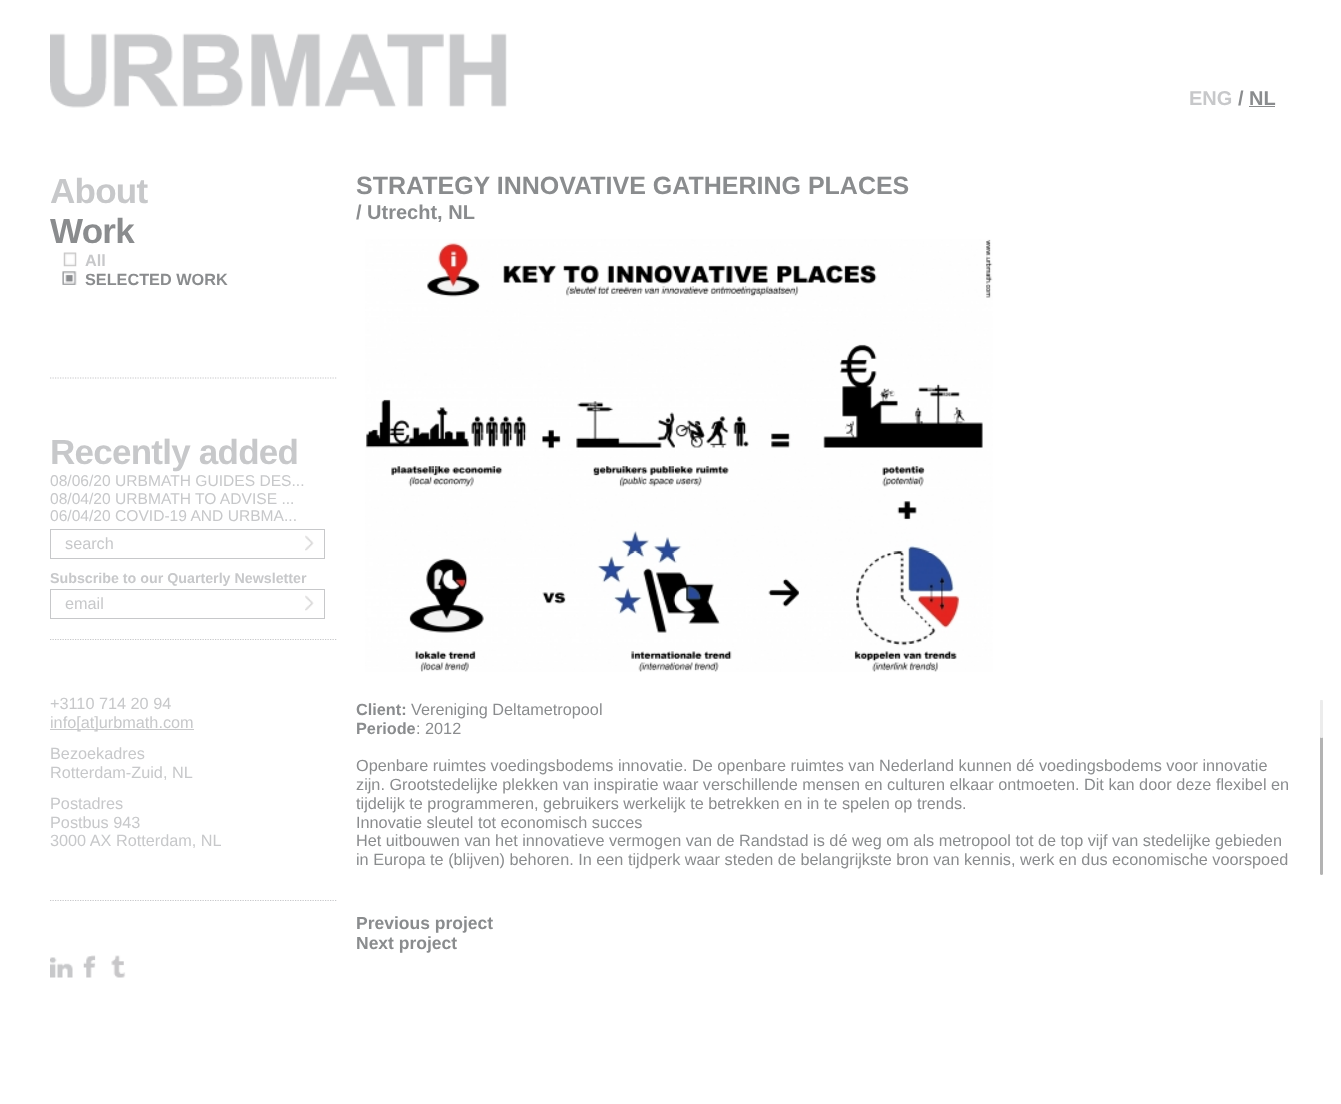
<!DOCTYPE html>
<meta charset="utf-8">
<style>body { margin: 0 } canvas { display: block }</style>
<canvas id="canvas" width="1341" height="1104"></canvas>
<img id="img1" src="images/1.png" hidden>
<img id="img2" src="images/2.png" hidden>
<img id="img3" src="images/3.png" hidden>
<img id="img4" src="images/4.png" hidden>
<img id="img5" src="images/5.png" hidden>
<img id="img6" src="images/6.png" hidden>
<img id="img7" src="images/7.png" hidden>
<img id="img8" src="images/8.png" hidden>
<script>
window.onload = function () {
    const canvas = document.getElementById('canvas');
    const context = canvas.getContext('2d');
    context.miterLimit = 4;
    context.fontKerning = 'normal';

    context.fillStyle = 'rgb(255, 255, 255)';
    context.fillRect(0, 0, 1341, 1104);
    context.drawImage(document.getElementById('img1'), 50, 33, 457, 75);
    context.fillStyle = 'rgb(138, 140, 142)';
    context.fillRect(1249, 106, 26, 1);
    context.beginPath();
    context.moveTo(50, 378);
    context.lineTo(337.5, 378);
    context.strokeStyle = 'rgb(199, 200, 202)';
    context.lineWidth = 1.2;
    context.setLineDash([1.25, 1.25]);
    context.stroke();
    context.drawImage(document.getElementById('img2'), 63, 252, 14, 15);
    context.drawImage(document.getElementById('img3'), 62, 271, 15, 14);
    context.beginPath();
    context.moveTo(50, 639.5);
    context.lineTo(337.5, 639.5);
    context.stroke();
    context.lineWidth = 1;
    context.setLineDash([]);
    context.strokeRect(50.5, 529.5, 274, 29);
    context.drawImage(document.getElementById('img4'), 305, 535, 9, 16);
    context.strokeRect(50.5, 589.5, 274, 29);
    context.drawImage(document.getElementById('img4'), 305, 595, 9, 16);
    context.beginPath();
    context.moveTo(50, 900.5);
    context.lineTo(337.5, 900.5);
    context.lineWidth = 1.2;
    context.setLineDash([1.25, 1.25]);
    context.stroke();
    context.fillStyle = 'rgb(199, 200, 202)';
    context.fillRect(50, 729, 144, 1);
    context.drawImage(document.getElementById('img5'), 50, 957, 23, 21);
    context.drawImage(document.getElementById('img6'), 83, 955, 13, 23);
    context.drawImage(document.getElementById('img7'), 111, 955, 15, 23);
    context.drawImage(document.getElementById('img8'), 365, 239, 628, 433);
    context.fillStyle = 'rgb(179, 179, 179)';
    context.beginPath();
    context.roundRect(1320, 700, 3, 175, 1.5);
    context.fill();
    context.fillStyle = 'rgba(255, 255, 255, 0.75)';
    context.beginPath();
    context.roundRect(1319, 700, 5, 38, 2.5);
    context.fill();
    context.font = 'bold 20px Liberation Sans';
    context.fillStyle = 'rgb(199, 200, 202)';
    context.fillText('ENG', 1189, 105);
    context.fillStyle = 'rgb(138, 140, 142)';
    context.fillText('/ NL', 1238, 105);
    context.letterSpacing = '-0.75px';
    context.font = 'bold 35px Liberation Sans';
    context.fillStyle = 'rgb(199, 200, 202)';
    context.fillText('About', 50, 203);
    context.fillStyle = 'rgb(138, 140, 142)';
    context.fillText('Work', 50, 243);
    context.letterSpacing = '0px';
    context.font = 'bold 16.25px Liberation Sans';
    context.fillStyle = 'rgb(199, 200, 202)';
    context.fillText('All', 85, 266);
    context.fillStyle = 'rgb(138, 140, 142)';
    context.fillText('SELECTED WORK', 85, 285);
    context.letterSpacing = '-0.75px';
    context.font = 'bold 35px Liberation Sans';
    context.fillStyle = 'rgb(199, 200, 202)';
    context.fillText('Recently added', 50, 464);
    context.letterSpacing = '0px';
    context.font = '15.6px Liberation Sans';
    context.fillText('08/06/20 URBMATH GUIDES DES...', 50, 486);
    context.fillText('08/04/20 URBMATH TO ADVISE ...', 50, 504);
    context.fillText('06/04/20 COVID-19 AND URBMA...', 50, 521);
    context.font = '16.25px Liberation Sans';
    context.fillText('search', 65, 549);
    context.font = 'bold 14.25px Liberation Sans';
    context.fillText('Subscribe to our Quarterly Newsletter', 50, 583);
    context.font = '16.25px Liberation Sans';
    context.fillText('email', 65, 609);
    context.fillText('+3110 714 20 94', 50, 709);
    context.fillText('info[at]urbmath.com', 50, 728);
    context.fillText('Bezoekadres', 50, 759);
    context.fillText('Rotterdam-Zuid, NL', 50, 778);
    context.fillText('Postadres', 50, 809);
    context.fillText('Postbus 943', 50, 828);
    context.fillText('3000 AX Rotterdam, NL', 50, 846);
    context.font = 'bold 25px Liberation Sans';
    context.fillStyle = 'rgb(138, 140, 142)';
    context.fillText('STRATEGY INNOVATIVE GATHERING PLACES', 356, 194);
    context.font = 'bold 20px Liberation Sans';
    context.fillText('/ Utrecht, NL', 356, 219);
    context.font = 'bold 16.25px Liberation Sans';
    context.fillText('Client:', 356, 715);
    context.font = '16.25px Liberation Sans';
    context.fillText('Vereniging Deltametropool', 411, 715);
    context.font = 'bold 16.25px Liberation Sans';
    context.fillText('Periode', 356, 734);
    context.font = '16.25px Liberation Sans';
    context.fillText(': 2012', 416, 734);
    context.fillText('Openbare ruimtes voedingsbodems innovatie. De openbare ruimtes van Nederland kunnen dé voedingsbodems voor innovatie', 356, 771);
    context.fillText('zijn. Grootstedelijke plekken van inspiratie waar verschillende mensen en culturen elkaar ontmoeten. Dit kan door deze flexibel en', 356, 790);
    context.fillText('tijdelijk te programmeren, gebruikers werkelijk te betrekken en in te spelen op trends.', 356, 809);
    context.fillText('Innovatie sleutel tot economisch succes', 356, 828);
    context.fillText('Het uitbouwen van het innovatieve vermogen van de Randstad is dé weg om als metropool tot de top vijf van stedelijke gebieden', 356, 846);
    context.fillText('in Europa te (blijven) behoren. In een tijdperk waar steden de belangrijkste bron van kennis, werk en dus economische voorspoed', 356, 865);
    context.font = 'bold 17.5px Liberation Sans';
    context.fillText('Previous project', 356, 929);
    context.fillText('Next project', 356, 949);
};
</script>
